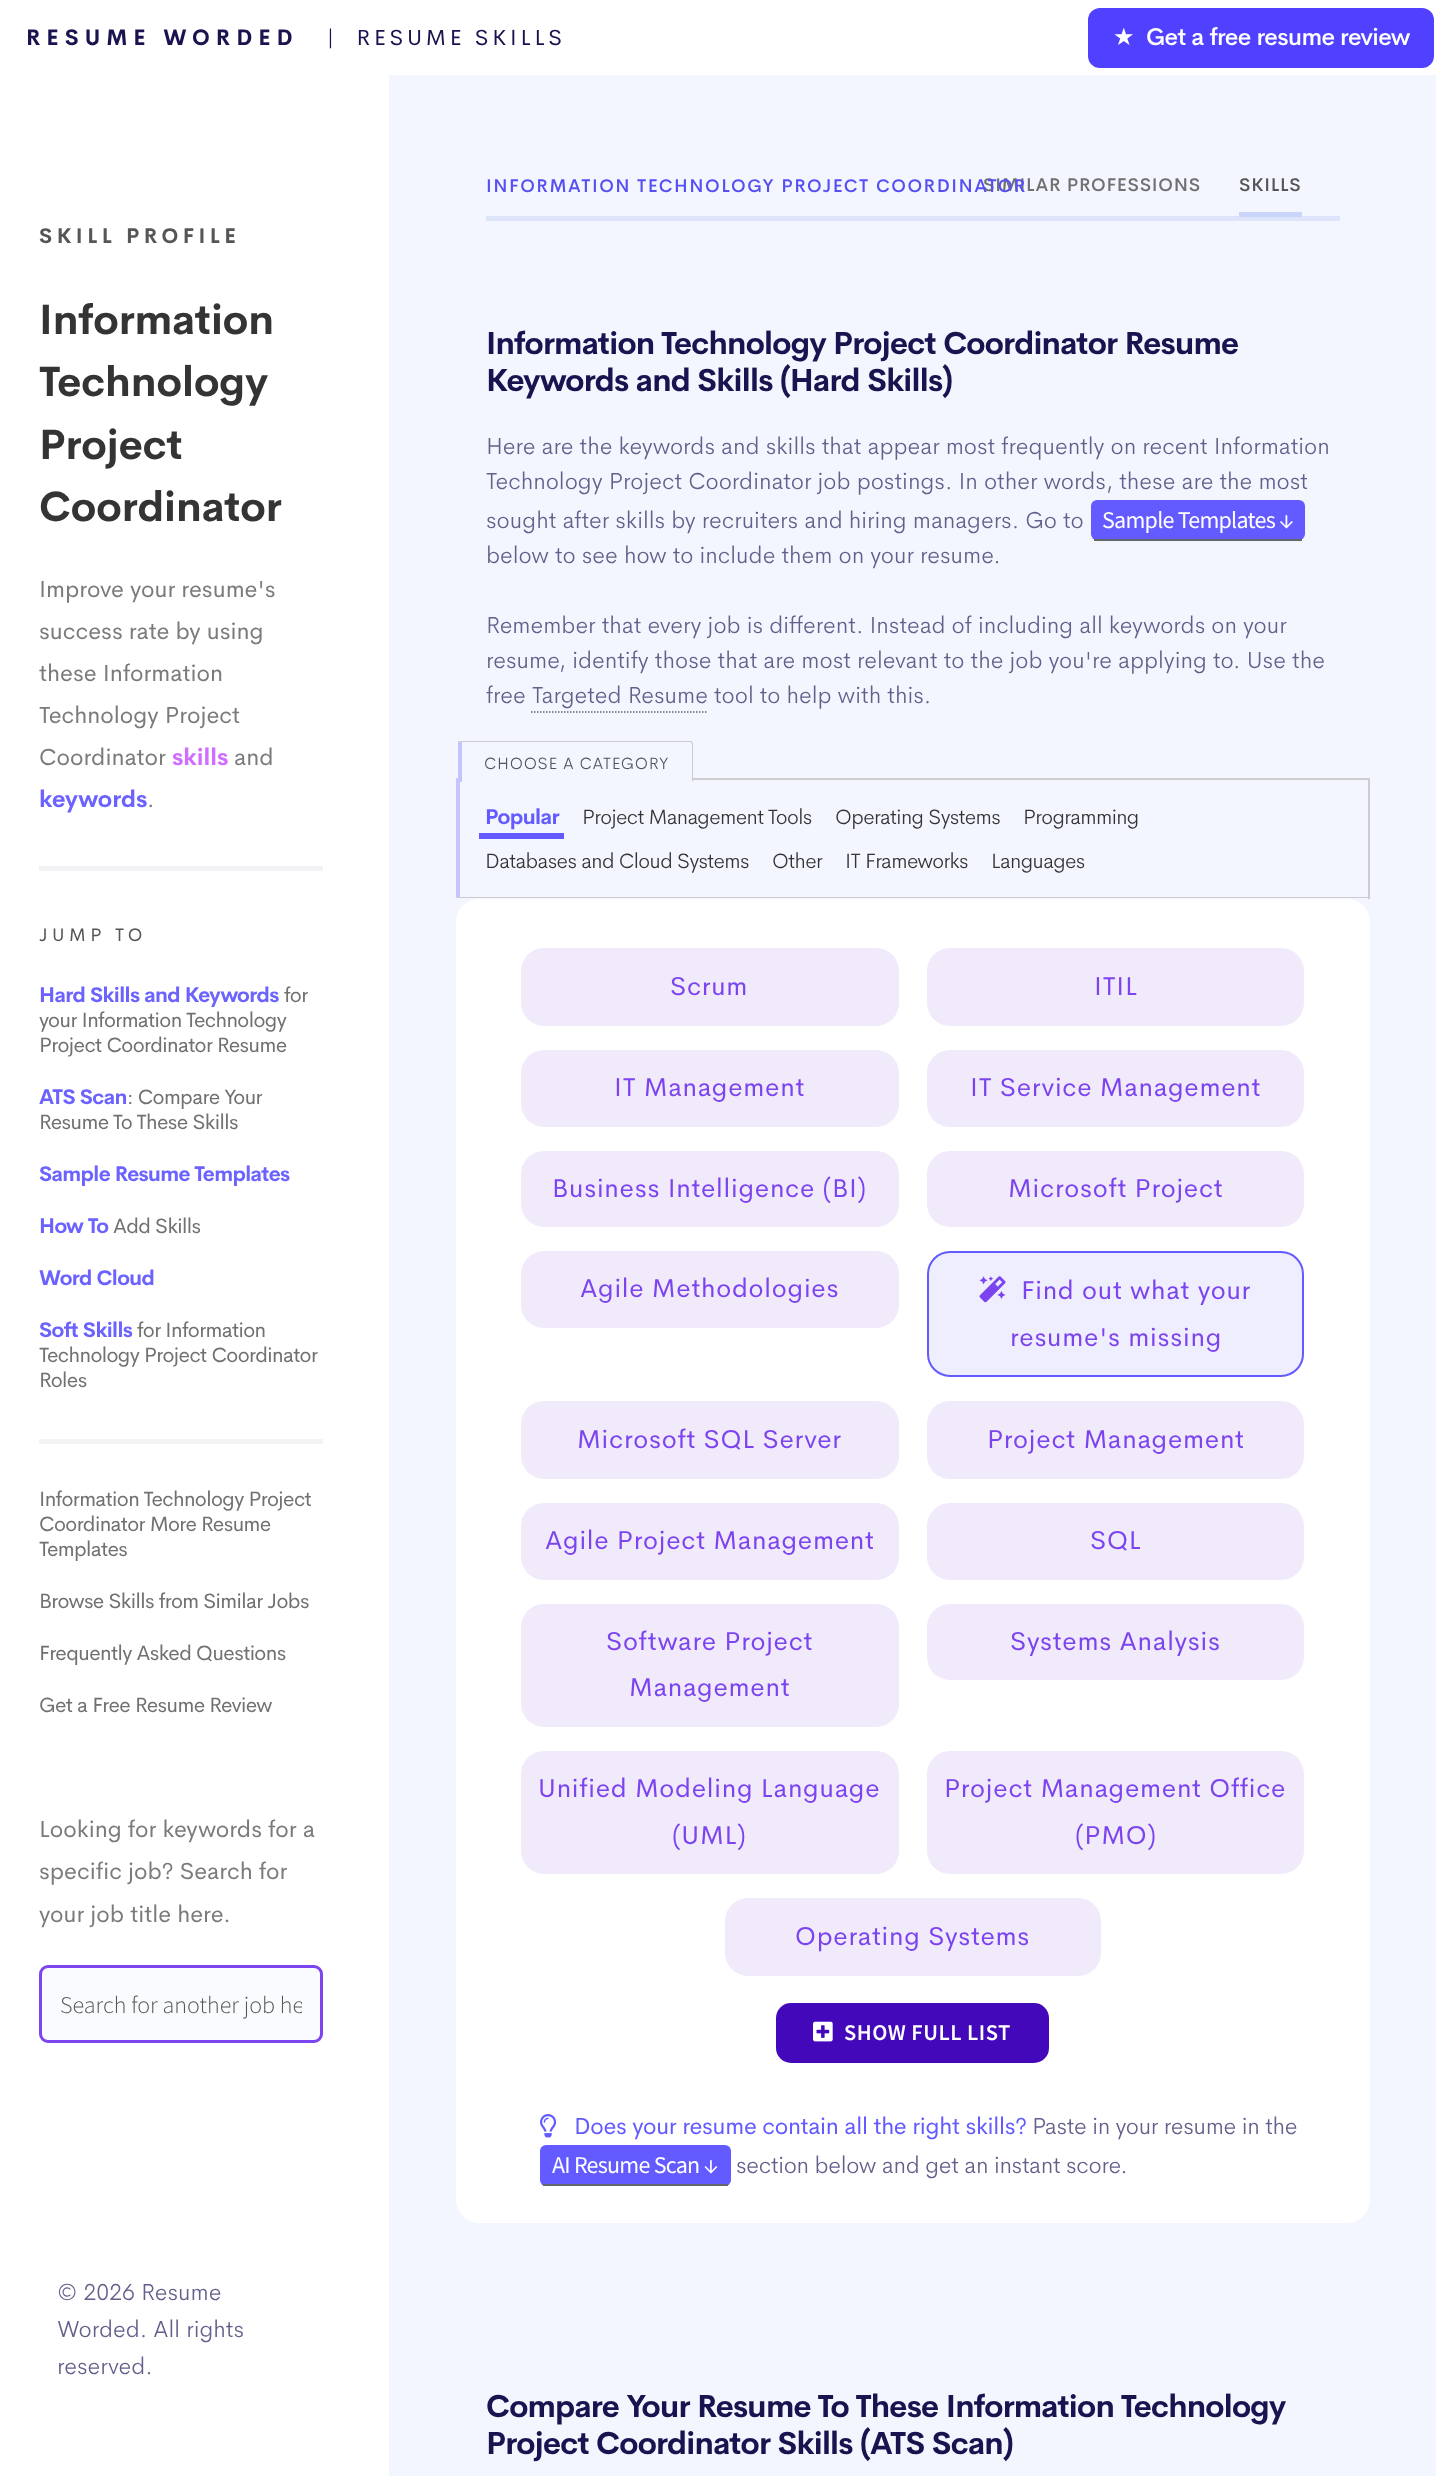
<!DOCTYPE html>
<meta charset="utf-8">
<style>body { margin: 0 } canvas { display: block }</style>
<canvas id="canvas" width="1436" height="2476"></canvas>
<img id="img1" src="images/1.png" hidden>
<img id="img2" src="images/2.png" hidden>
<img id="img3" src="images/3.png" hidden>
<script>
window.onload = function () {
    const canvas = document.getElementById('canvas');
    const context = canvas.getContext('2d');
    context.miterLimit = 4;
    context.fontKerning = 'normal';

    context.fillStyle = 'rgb(255, 255, 255)';
    context.fillRect(0, 0, 1436, 2476);
    context.fillStyle = 'rgb(80, 64, 255)';
    context.beginPath();
    context.roundRect(1088, 8, 346, 60, 12);
    context.fill();
    context.fillStyle = 'rgb(243, 243, 246)';
    context.fillRect(39, 866, 284, 5);
    context.fillRect(39, 1439, 284, 5);
    context.fillStyle = 'rgb(249, 251, 254)';
    context.beginPath();
    context.roundRect(40.5, 1966.5, 281, 75, 7.5);
    context.fill();
    context.strokeStyle = 'rgb(125, 69, 239)';
    context.lineWidth = 3;
    context.stroke();
    context.fillStyle = 'rgb(243, 246, 254)';
    context.fillRect(389, 75, 1047, 2401);
    context.fillStyle = 'rgb(222, 229, 251)';
    context.fillRect(486, 216, 854, 5);
    context.fillStyle = 'rgb(202, 213, 251)';
    context.fillRect(1239, 212, 63, 5);
    context.fillStyle = 'rgb(99, 91, 255)';
    context.beginPath();
    context.roundRect(1091, 500, 214, 40, 6);
    context.fill();
    context.fillStyle = 'rgb(98, 103, 108)';
    context.fillRect(1094, 539, 208, 2);
    context.beginPath();
    context.moveTo(531, 712);
    context.lineTo(708, 712);
    context.strokeStyle = 'rgb(98, 103, 108)';
    context.lineWidth = 1.5;
    context.setLineDash([1.5, 1.5]);
    context.stroke();
    context.fillStyle = 'rgb(204, 204, 204)';
    context.beginPath();
    context.moveTo(456, 778);
    context.lineTo(1370, 778);
    context.lineTo(1368, 780);
    context.lineTo(460, 780);
    context.closePath();
    context.fill();
    context.fillRect(1368, 779, 2, 120);
    context.beginPath();
    context.moveTo(1370, 898);
    context.lineTo(456, 898);
    context.lineTo(460, 897);
    context.lineTo(1368, 897);
    context.closePath();
    context.fill();
    context.fillStyle = 'rgb(195, 197, 252)';
    context.beginPath();
    context.moveTo(456, 898);
    context.lineTo(456, 778);
    context.lineTo(460, 780);
    context.lineTo(460, 897);
    context.closePath();
    context.fill();
    context.fillStyle = 'rgb(243, 246, 255)';
    context.beginPath();
    context.roundRect(458, 741, 235, 41, [0, 3, 0, 0]);
    context.fill();
    context.fillStyle = 'rgb(204, 204, 204)';
    context.beginPath();
    context.moveTo(458, 741);
    context.lineTo(692, 741);
    context.lineTo(692, 742);
    context.lineTo(691, 743);
    context.lineTo(690, 742);
    context.lineTo(462, 742);
    context.closePath();
    context.fill();
    context.beginPath();
    context.moveTo(692, 781.5);
    context.lineTo(692, 744);
    context.lineTo(691.5, 742.5);
    context.lineTo(692, 742);
    context.bezierCurveTo(693, 742, 693, 743, 693, 744);
    context.lineTo(693, 781.5);
    context.closePath();
    context.fill();
    context.fillStyle = 'rgb(195, 197, 252)';
    context.beginPath();
    context.moveTo(462, 782);
    context.lineTo(458, 782);
    context.lineTo(458, 741);
    context.lineTo(462, 742);
    context.closePath();
    context.fill();
    context.fillStyle = 'rgb(99, 91, 255)';
    context.fillRect(479, 833, 85, 6);
    context.fillStyle = 'rgb(255, 255, 255)';
    context.beginPath();
    context.roundRect(456, 899, 914, 1324, 23);
    context.fill();
    context.fillStyle = 'rgb(240, 234, 251)';
    context.beginPath();
    context.roundRect(521, 948, 378, 78, 23);
    context.fill();
    context.beginPath();
    context.roundRect(927, 948, 377, 78, 23);
    context.fill();
    context.beginPath();
    context.roundRect(521, 1050, 378, 77, 23);
    context.fill();
    context.beginPath();
    context.roundRect(927, 1050, 377, 77, 23);
    context.fill();
    context.beginPath();
    context.roundRect(521, 1151, 378, 76, 23);
    context.fill();
    context.beginPath();
    context.roundRect(927, 1151, 377, 76, 23);
    context.fill();
    context.beginPath();
    context.roundRect(521, 1251, 378, 77, 23);
    context.fill();
    context.fillStyle = 'rgb(239, 238, 255)';
    context.beginPath();
    context.roundRect(928, 1252, 375, 124, 22);
    context.fill();
    context.strokeStyle = 'rgb(99, 91, 255)';
    context.lineWidth = 2;
    context.setLineDash([]);
    context.stroke();
    context.drawImage(document.getElementById('img1'), 979, 1276, 27, 27);
    context.fillStyle = 'rgb(240, 234, 251)';
    context.beginPath();
    context.roundRect(521, 1401, 378, 78, 23);
    context.fill();
    context.beginPath();
    context.roundRect(927, 1401, 377, 78, 23);
    context.fill();
    context.beginPath();
    context.roundRect(521, 1503, 378, 77, 23);
    context.fill();
    context.beginPath();
    context.roundRect(927, 1503, 377, 77, 23);
    context.fill();
    context.beginPath();
    context.roundRect(521, 1604, 378, 123, 23);
    context.fill();
    context.beginPath();
    context.roundRect(927, 1604, 377, 76, 23);
    context.fill();
    context.beginPath();
    context.roundRect(521, 1751, 378, 123, 23);
    context.fill();
    context.beginPath();
    context.roundRect(927, 1751, 377, 123, 23);
    context.fill();
    context.beginPath();
    context.roundRect(725, 1898, 376, 78, 23);
    context.fill();
    context.fillStyle = 'rgb(68, 8, 187)';
    context.beginPath();
    context.roundRect(776, 2003, 273, 60, 15);
    context.fill();
    context.drawImage(document.getElementById('img2'), 813, 2021, 20, 21);
    context.drawImage(document.getElementById('img3'), 540, 2114, 17, 24);
    context.fillStyle = 'rgb(99, 91, 255)';
    context.beginPath();
    context.roundRect(540, 2145, 191, 41, 6);
    context.fill();
    context.fillStyle = 'rgb(98, 103, 108)';
    context.fillRect(543, 2184, 185, 2);
    context.letterSpacing = '6px';
    context.font = 'bold 22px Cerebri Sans';
    context.fillStyle = 'rgb(25, 19, 80)';
    context.fillText('RESUME WORDED', 26, 45);
    context.letterSpacing = '3.75px';
    context.font = '22px Cerebri Sans';
    context.fillText('|  RESUME SKILLS', 327, 45);
    context.letterSpacing = '-0.6px';
    context.font = '24px DejaVu Sans';
    context.fillStyle = 'rgb(255, 255, 255)';
    context.fillText('★', 1113, 45);
    context.font = '500 24px Cerebri Sans';
    context.fillText('Get a free resume review', 1146, 45);
    context.letterSpacing = '4.5px';
    context.font = 'bold 20.75px Cerebri Sans';
    context.fillStyle = 'rgb(86, 86, 86)';
    context.fillText('SKILL PROFILE', 39, 243);
    context.letterSpacing = '0px';
    context.font = 'bold 41.5px Cerebri Sans';
    context.fillStyle = 'rgb(52, 52, 52)';
    context.fillText('Information', 39, 334);
    context.fillText('Technology', 39, 396);
    context.fillText('Project', 39, 459);
    context.fillText('Coordinator', 39, 521);
    context.font = '23.4px Cerebri Sans';
    context.fillStyle = 'rgb(123, 123, 123)';
    context.fillText('Improve your resume\'s', 39, 597);
    context.fillText('success rate by using', 39, 639);
    context.fillText('these Information', 39, 681);
    context.fillText('Technology Project', 39, 723);
    context.fillText('Coordinator', 39, 765);
    context.font = 'bold 23.4px Cerebri Sans';
    context.fillStyle = 'rgb(209, 110, 255)';
    context.fillText('skills', 172, 765);
    context.font = '23.4px Cerebri Sans';
    context.fillStyle = 'rgb(123, 123, 123)';
    context.fillText('and', 234, 765);
    context.font = 'bold 23.4px Cerebri Sans';
    context.fillStyle = 'rgb(108, 99, 254)';
    context.fillText('keywords', 39, 807);
    context.font = '23.4px Cerebri Sans';
    context.fillStyle = 'rgb(123, 123, 123)';
    context.fillText('.', 147, 807);
    context.letterSpacing = '4.5px';
    context.font = '18.2px Cerebri Sans';
    context.fillStyle = 'rgb(86, 86, 86)';
    context.fillText('JUMP TO', 39, 941);
    context.letterSpacing = '-0.6px';
    context.font = 'bold 20.75px Cerebri Sans';
    context.fillStyle = 'rgb(108, 99, 254)';
    context.fillText('Hard Skills and Keywords', 39, 1002);
    context.font = '20.75px Cerebri Sans';
    context.fillStyle = 'rgb(114, 112, 112)';
    context.fillText('for', 284, 1002);
    context.fillText('your Information Technology', 39, 1027);
    context.fillText('Project Coordinator Resume', 39, 1052);
    context.font = 'bold 20.75px Cerebri Sans';
    context.fillStyle = 'rgb(108, 99, 254)';
    context.fillText('ATS Scan', 39, 1104);
    context.font = '20.75px Cerebri Sans';
    context.fillStyle = 'rgb(114, 112, 112)';
    context.fillText(': Compare Your', 127, 1104);
    context.fillText('Resume To These Skills', 39, 1129);
    context.font = 'bold 20.75px Cerebri Sans';
    context.fillStyle = 'rgb(108, 99, 254)';
    context.fillText('Sample Resume Templates', 39, 1181);
    context.fillText('How To', 39, 1233);
    context.font = '20.75px Cerebri Sans';
    context.fillStyle = 'rgb(114, 112, 112)';
    context.fillText('Add Skills', 113, 1233);
    context.font = 'bold 20.75px Cerebri Sans';
    context.fillStyle = 'rgb(108, 99, 254)';
    context.fillText('Word Cloud', 39, 1285);
    context.fillText('Soft Skills', 39, 1337);
    context.font = '20.75px Cerebri Sans';
    context.fillStyle = 'rgb(114, 112, 112)';
    context.fillText('for Information', 137, 1337);
    context.fillText('Technology Project Coordinator', 39, 1362);
    context.fillText('Roles', 39, 1387);
    context.fillText('Information Technology Project', 39, 1506);
    context.fillText('Coordinator More Resume', 39, 1531);
    context.fillText('Templates', 39, 1556);
    context.fillText('Browse Skills from Similar Jobs', 39, 1608);
    context.fillText('Frequently Asked Questions', 39, 1660);
    context.fillText('Get a Free Resume Review', 39, 1712);
    context.letterSpacing = '0px';
    context.font = '23.4px Cerebri Sans';
    context.fillStyle = 'rgb(123, 123, 123)';
    context.fillText('Looking for keywords for a', 39, 1837);
    context.fillText('specific job? Search for', 39, 1879);
    context.fillText('your job title here.', 39, 1922);
    context.save();
    context.beginPath();
    context.rect(60, 1989, 242, 30);
    context.clip();
    context.font = '300 24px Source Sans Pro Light';
    context.fillStyle = 'rgb(86, 86, 86)';
    context.fillText('Search for another job he', 60, 2013);
    context.restore();
    context.font = '300 23.4px Cerebri Sans';
    context.fillStyle = 'rgb(99, 97, 140)';
    context.fillText('© 2026 Resume', 57, 2300);
    context.fillText('Worded. All rights', 57, 2337);
    context.fillText('reserved.', 57, 2374);
    context.letterSpacing = '0.75px';
    context.font = '500 18.2px Cerebri Sans';
    context.fillStyle = 'rgb(114, 112, 112)';
    context.fillText('SIMILAR PROFESSIONS', 983, 191);
    context.letterSpacing = '1.5px';
    context.fillStyle = 'rgb(86, 79, 242)';
    context.fillText('INFORMATION TECHNOLOGY PROJECT COORDINATOR', 486, 192);
    context.letterSpacing = '0.75px';
    context.fillStyle = 'rgb(86, 86, 86)';
    context.fillText('SKILLS', 1239, 191);
    context.letterSpacing = '-0.75px';
    context.font = 'bold 31.2px Cerebri Sans';
    context.fillStyle = 'rgb(25, 19, 80)';
    context.fillText('Information Technology Project Coordinator Resume', 486, 354);
    context.fillText('Keywords and Skills (Hard Skills)', 486, 391);
    context.letterSpacing = '0px';
    context.font = '300 23.4px Cerebri Sans';
    context.fillStyle = 'rgb(99, 97, 140)';
    context.fillText('Here are the keywords and skills that appear most frequently on recent Information', 486, 454);
    context.fillText('Technology Project Coordinator job postings. In other words, these are the most', 486, 489);
    context.fillText('sought after skills by recruiters and hiring managers. Go to', 486, 528);
    context.letterSpacing = '-0.75px';
    context.font = '24px Source Sans Pro';
    context.fillStyle = 'rgb(255, 255, 255)';
    context.fillText('Sample Templates ↓', 1102, 528);
    context.letterSpacing = '0px';
    context.font = '300 23.4px Cerebri Sans';
    context.fillStyle = 'rgb(99, 97, 140)';
    context.fillText('below to see how to include them on your resume.', 486, 563);
    context.fillText('Remember that every job is different. Instead of including all keywords on your', 486, 633);
    context.fillText('resume, identify those that are most relevant to the job you\'re applying to. Use the', 486, 668);
    context.fillText('free', 486, 703);
    context.fillText('Targeted Resume tool to help with this.', 532, 703);
    context.letterSpacing = '0.75px';
    context.font = '300 16.5px Cerebri Sans';
    context.fillStyle = 'rgb(82, 87, 92)';
    context.fillText('CHOOSE A CATEGORY', 484, 769);
    context.letterSpacing = '-0.6px';
    context.font = 'bold 21px Cerebri Sans';
    context.fillStyle = 'rgb(99, 91, 255)';
    context.fillText('Popular', 485, 824);
    context.font = '300 21px Cerebri Sans';
    context.fillStyle = 'rgb(52, 52, 52)';
    context.fillText('Project Management Tools', 582, 824);
    context.fillText('Operating Systems', 835, 824);
    context.fillText('Programming', 1023, 824);
    context.fillText('Databases and Cloud Systems', 485, 868);
    context.fillText('Other', 772, 868);
    context.fillText('IT Frameworks', 845, 868);
    context.fillText('Languages', 991, 868);
    context.letterSpacing = '0.75px';
    context.font = '26px Cerebri Sans';
    context.fillStyle = 'rgb(124, 68, 239)';
    context.fillText('Scrum', 670, 995);
    context.fillText('ITIL', 1094, 995);
    context.fillText('IT Management', 614, 1096);
    context.fillText('IT Service Management', 970, 1096);
    context.fillText('Business Intelligence (BI)', 552, 1197);
    context.fillText('Microsoft Project', 1008, 1197);
    context.fillText('Agile Methodologies', 580, 1297);
    context.fillText('Find out what your', 1021, 1299);
    context.fillText('resume\'s missing', 1010, 1346);
    context.fillText('Microsoft SQL Server', 577, 1448);
    context.fillText('Project Management', 987, 1448);
    context.fillText('Agile Project Management', 545, 1549);
    context.fillText('SQL', 1090, 1549);
    context.fillText('Software Project', 606, 1650);
    context.fillText('Management', 629, 1696);
    context.fillText('Systems Analysis', 1010, 1650);
    context.fillText('Unified Modeling Language', 538, 1797);
    context.fillText('(UML)', 672, 1844);
    context.fillText('Project Management Office', 944, 1797);
    context.fillText('(PMO)', 1075, 1844);
    context.fillText('Operating Systems', 795, 1945);
    context.letterSpacing = '0.5px';
    context.font = '600 22.5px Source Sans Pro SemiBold';
    context.fillStyle = 'rgb(255, 255, 255)';
    context.fillText('SHOW FULL LIST', 844, 2040);
    context.letterSpacing = '-0.3px';
    context.font = '23.4px Cerebri Sans';
    context.fillStyle = 'rgb(99, 91, 255)';
    context.fillText('Does your resume contain all the right skills?', 574, 2134);
    context.font = '300 23.4px Cerebri Sans';
    context.fillStyle = 'rgb(99, 97, 140)';
    context.fillText('Paste in your resume in the', 1032, 2134);
    context.letterSpacing = '-0.75px';
    context.font = '24px Source Sans Pro';
    context.fillStyle = 'rgb(255, 255, 255)';
    context.fillText('AI Resume Scan ↓', 552, 2173);
    context.letterSpacing = '-0.3px';
    context.font = '300 23.4px Cerebri Sans';
    context.fillStyle = 'rgb(99, 97, 140)';
    context.fillText('section below and get an instant score.', 736, 2173);
    context.letterSpacing = '-0.75px';
    context.font = 'bold 31.2px Cerebri Sans';
    context.fillStyle = 'rgb(25, 19, 80)';
    context.fillText('Compare Your Resume To These Information Technology', 486, 2417);
    context.fillText('Project Coordinator Skills (ATS Scan)', 486, 2454);
};
</script>
